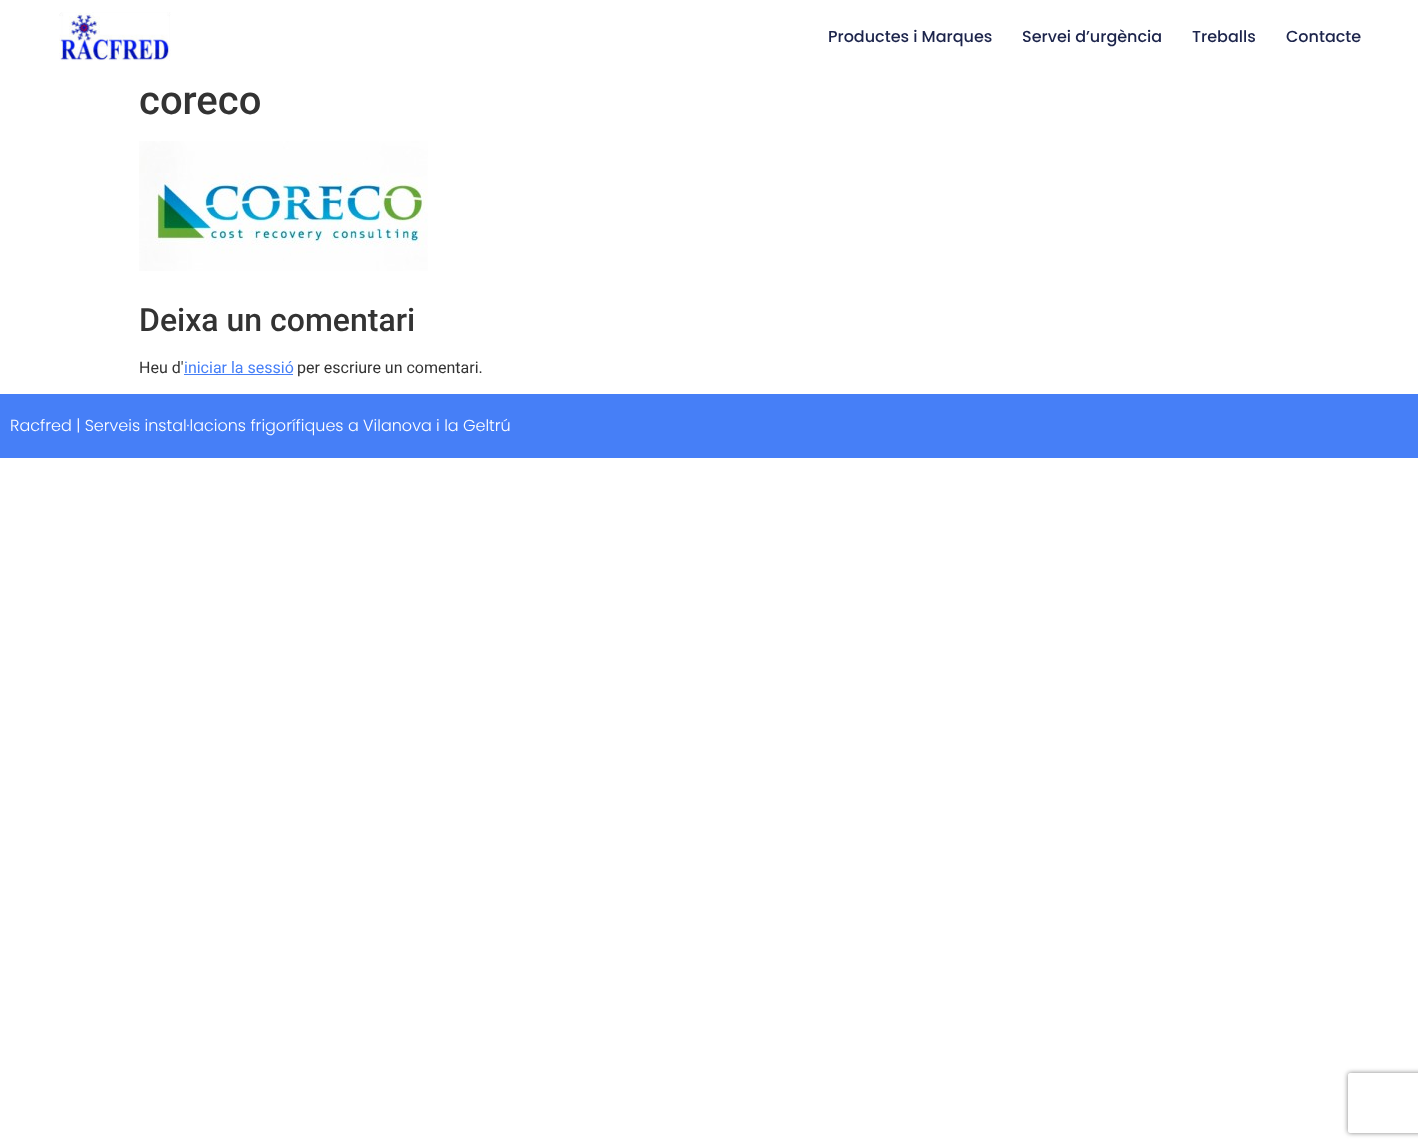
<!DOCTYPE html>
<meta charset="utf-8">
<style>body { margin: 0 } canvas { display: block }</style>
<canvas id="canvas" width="1418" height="1147"></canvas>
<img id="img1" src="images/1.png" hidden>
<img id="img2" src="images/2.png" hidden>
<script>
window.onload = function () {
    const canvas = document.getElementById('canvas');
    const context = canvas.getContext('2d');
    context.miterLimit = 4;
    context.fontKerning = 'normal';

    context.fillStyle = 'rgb(255, 255, 255)';
    context.fillRect(0, 0, 1418, 1147);
    context.drawImage(document.getElementById('img1'), 59, 12, 112, 49);
    context.drawImage(document.getElementById('img2'), 139, 141, 289, 130);
    context.fillStyle = 'rgb(70, 127, 247)';
    context.fillRect(184, 374, 109, 1);
    context.fillRect(0, 394, 1418, 64);
    context.save();
    context.beginPath();
    context.moveTo(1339, 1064);
    context.lineTo(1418, 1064);
    context.lineTo(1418, 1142);
    context.lineTo(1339, 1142);
    context.closePath();
    context.moveTo(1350, 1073);
    context.lineTo(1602, 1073);
    context.bezierCurveTo(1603, 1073, 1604, 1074, 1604, 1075);
    context.lineTo(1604, 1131);
    context.bezierCurveTo(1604, 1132, 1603, 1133, 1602, 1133);
    context.lineTo(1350, 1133);
    context.bezierCurveTo(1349, 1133, 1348, 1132, 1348, 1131);
    context.lineTo(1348, 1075);
    context.bezierCurveTo(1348, 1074, 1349, 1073, 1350, 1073);
    context.closePath();
    context.clip('evenodd');
    context.fillStyle = 'rgb(128, 128, 128)';
    context.filter = 'blur(2.5px)';
    context.beginPath();
    context.roundRect(1348, 1073, 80, 60, 2);
    context.fill();
    context.filter = 'none';
    context.restore();
    context.font = '500 16px Poppins';
    context.fillStyle = 'rgb(28, 36, 75)';
    context.fillText('Productes i Marques', 828, 42);
    context.fillText('Servei d’urgència', 1022, 42);
    context.fillText('Treballs', 1192, 42);
    context.fillText('Contacte', 1286, 42);
    context.font = '500 40px Roboto';
    context.fillStyle = 'rgb(51, 51, 51)';
    context.fillText('coreco', 139, 114);
    context.font = '500 32px Roboto';
    context.fillText('Deixa un comentari', 139, 331);
    context.font = '16px Roboto';
    context.fillText('Heu d\'', 139, 373);
    context.fillStyle = 'rgb(70, 127, 247)';
    context.fillText('iniciar la sessió', 184, 373);
    context.fillStyle = 'rgb(51, 51, 51)';
    context.fillText('per escriure un comentari.', 297, 373);
    context.font = '300 16px Poppins';
    context.fillStyle = 'rgb(255, 255, 255)';
    context.fillText('Racfred | Serveis instal·lacions frigorífiques a Vilanova i la Geltrú', 10, 431);
};
</script>
